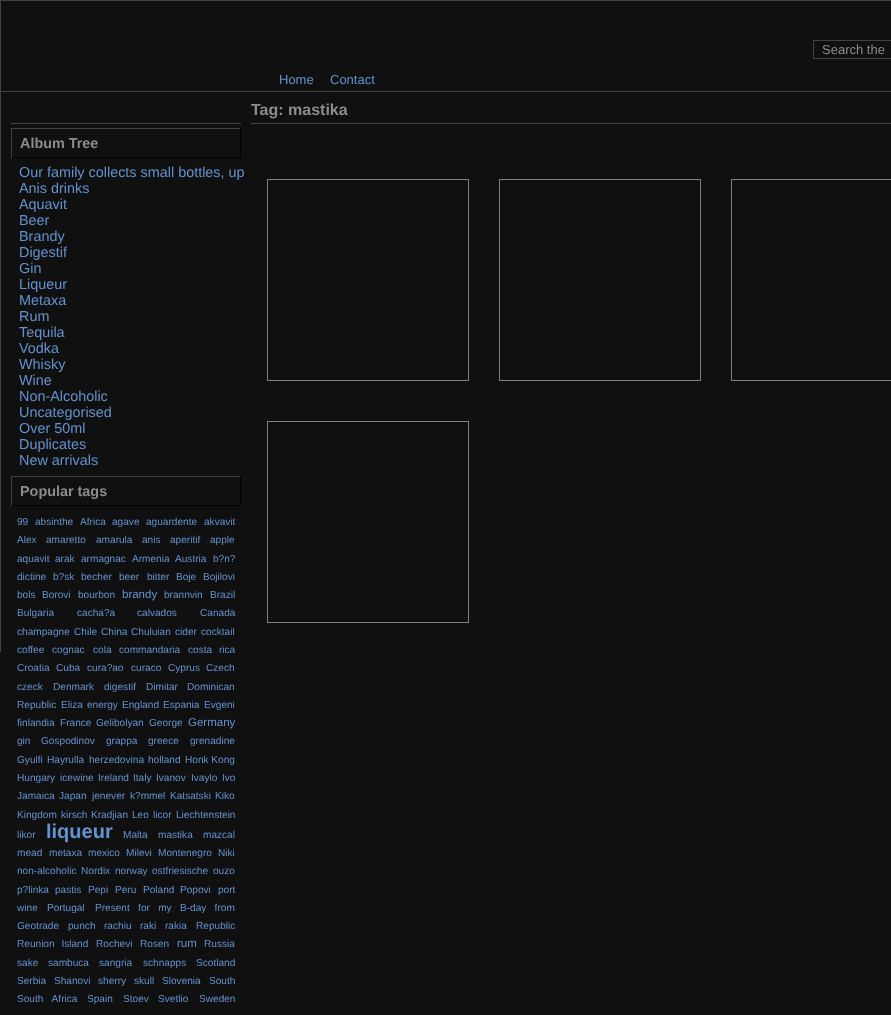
<!DOCTYPE html>
<meta charset="utf-8">
<style>body { margin: 0 } canvas { display: block }</style>
<canvas id="canvas" width="891" height="1015"></canvas>
<script>
window.onload = function () {
    const canvas = document.getElementById('canvas');
    const context = canvas.getContext('2d');
    context.miterLimit = 4;
    context.fontKerning = 'normal';

    context.fillStyle = 'rgb(16, 16, 16)';
    context.fillRect(0, 0, 891, 1015);
    context.strokeStyle = 'rgb(66, 66, 66)';
    context.strokeRect(0.5, 0.5, 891, 91);
    context.strokeRect(813.5, 40.5, 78, 18);
    context.fillStyle = 'rgb(66, 66, 66)';
    context.fillRect(0, 92, 1, 560);
    context.fillRect(251, 123, 640, 1);
    context.strokeStyle = 'rgb(127, 127, 127)';
    context.strokeRect(267.5, 179.5, 201, 201);
    context.strokeRect(499.5, 179.5, 201, 201);
    context.strokeRect(731.5, 179.5, 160, 201);
    context.strokeRect(267.5, 421.5, 201, 201);
    context.fillRect(11, 123, 230, 1);
    context.fillStyle = 'rgb(66, 65, 66)';
    context.fillRect(11, 128, 230, 1);
    context.fillStyle = 'rgb(0, 0, 0)';
    context.fillRect(240, 128, 1, 30);
    context.fillRect(11, 157, 230, 1);
    context.fillStyle = 'rgb(66, 65, 66)';
    context.fillRect(11, 128, 1, 30);
    context.fillRect(11, 476, 230, 1);
    context.fillStyle = 'rgb(0, 0, 0)';
    context.fillRect(240, 476, 1, 30);
    context.fillRect(11, 505, 230, 1);
    context.fillStyle = 'rgb(66, 65, 66)';
    context.fillRect(11, 476, 1, 30);
    context.font = '13px Liberation Sans';
    context.fillStyle = 'rgb(140, 140, 140)';
    context.fillText('Search the', 822, 54);
    context.fillStyle = 'rgb(99, 146, 207)';
    context.fillText('Home', 279, 84);
    context.fillText('Contact', 330, 84);
    context.font = 'bold 16px Liberation Sans';
    context.fillStyle = 'rgb(140, 140, 140)';
    context.fillText('Tag: mastika', 251, 115);
    context.font = 'bold 14.4px Liberation Sans';
    context.fillText('Album Tree', 20, 148);
    context.font = '14.4px Liberation Sans';
    context.fillStyle = 'rgb(99, 146, 207)';
    context.fillText('Our family collects small bottles, up', 19, 177);
    context.fillText('Anis drinks', 19, 193);
    context.fillText('Aquavit', 19, 209);
    context.fillText('Beer', 19, 225);
    context.fillText('Brandy', 19, 241);
    context.fillText('Digestif', 19, 257);
    context.fillText('Gin', 19, 273);
    context.fillText('Liqueur', 19, 289);
    context.fillText('Metaxa', 19, 305);
    context.fillText('Rum', 19, 321);
    context.fillText('Tequila', 19, 337);
    context.fillText('Vodka', 19, 353);
    context.fillText('Whisky', 19, 369);
    context.fillText('Wine', 19, 385);
    context.fillText('Non-Alcoholic', 19, 401);
    context.fillText('Uncategorised', 19, 417);
    context.fillText('Over 50ml', 19, 433);
    context.fillText('Duplicates', 19, 449);
    context.fillText('New arrivals', 19, 465);
    context.font = 'bold 14.4px Liberation Sans';
    context.fillStyle = 'rgb(140, 140, 140)';
    context.fillText('Popular tags', 20, 496);
    context.font = '10.1px Liberation Sans';
    context.fillStyle = 'rgb(99, 146, 207)';
    context.fillText('99', 17, 525);
    context.fillText('absinthe', 35, 525);
    context.fillText('Africa', 80, 525);
    context.fillText('agave', 112, 525);
    context.fillText('aguardente', 146, 525);
    context.fillText('akvavit', 204, 525);
    context.fillText('Alex', 17, 543);
    context.fillText('amaretto', 46, 543);
    context.fillText('amarula', 96, 543);
    context.fillText('anis', 142, 543);
    context.fillText('aperitif', 170, 543);
    context.fillText('apple', 210, 543);
    context.fillText('aquavit', 17, 562);
    context.fillText('arak', 55, 562);
    context.fillText('armagnac', 81, 562);
    context.fillText('Armenia', 132, 562);
    context.fillText('Austria', 175, 562);
    context.fillText('b?n?', 213, 562);
    context.fillText('dictine', 17, 580);
    context.fillText('b?sk', 53, 580);
    context.fillText('becher', 81, 580);
    context.fillText('beer', 119, 580);
    context.fillText('bitter', 147, 580);
    context.fillText('Boje', 176, 580);
    context.fillText('Bojilovi', 203, 580);
    context.fillText('bols', 17, 598);
    context.fillText('Borovi', 42, 598);
    context.fillText('bourbon', 78, 598);
    context.font = '11.5px Liberation Sans';
    context.fillText('brandy', 122, 598);
    context.font = '10.1px Liberation Sans';
    context.fillText('brannvin', 164, 598);
    context.fillText('Brazil', 210, 598);
    context.fillText('Bulgaria', 17, 616);
    context.fillText('cacha?a', 77, 616);
    context.fillText('calvados', 137, 616);
    context.fillText('Canada', 200, 616);
    context.fillText('champagne', 17, 635);
    context.fillText('Chile', 74, 635);
    context.fillText('China', 101, 635);
    context.fillText('Chuluian', 131, 635);
    context.fillText('cider', 175, 635);
    context.fillText('cocktail', 201, 635);
    context.fillText('coffee', 17, 653);
    context.fillText('cognac', 52, 653);
    context.fillText('cola', 93, 653);
    context.fillText('commandaria', 119, 653);
    context.wordSpacing = '4px';
    context.fillText('costa rica', 188, 653);
    context.wordSpacing = '0px';
    context.fillText('Croatia', 17, 671);
    context.fillText('Cuba', 56, 671);
    context.fillText('cura?ao', 87, 671);
    context.fillText('curaco', 131, 671);
    context.fillText('Cyprus', 168, 671);
    context.fillText('Czech', 206, 671);
    context.fillText('czeck', 17, 690);
    context.fillText('Denmark', 53, 690);
    context.fillText('digestif', 104, 690);
    context.fillText('Dimitar', 146, 690);
    context.fillText('Dominican', 187, 690);
    context.fillText('Republic', 17, 708);
    context.fillText('Eliza', 61, 708);
    context.fillText('energy', 87, 708);
    context.fillText('England', 122, 708);
    context.fillText('Espania', 163, 708);
    context.fillText('Evgeni', 204, 708);
    context.fillText('finlandia', 17, 726);
    context.fillText('France', 60, 726);
    context.fillText('Gelibolyan', 96, 726);
    context.fillText('George', 149, 726);
    context.font = '11.5px Liberation Sans';
    context.fillText('Germany', 188, 726);
    context.font = '10.1px Liberation Sans';
    context.fillText('gin', 17, 744);
    context.fillText('Gospodinov', 41, 744);
    context.fillText('grappa', 106, 744);
    context.fillText('greece', 148, 744);
    context.fillText('grenadine', 190, 744);
    context.fillText('Gyulfi', 17, 763);
    context.fillText('Hayrulla', 47, 763);
    context.fillText('herzedovina', 89, 763);
    context.fillText('holland', 148, 763);
    context.fillText('Honk Kong', 185, 763);
    context.fillText('Hungary', 17, 781);
    context.fillText('icewine', 60, 781);
    context.fillText('Ireland', 98, 781);
    context.fillText('Italy', 133, 781);
    context.fillText('Ivanov', 156, 781);
    context.fillText('Ivaylo', 191, 781);
    context.fillText('Ivo', 222, 781);
    context.fillText('Jamaica', 17, 799);
    context.fillText('Japan', 59, 799);
    context.fillText('jenever', 92, 799);
    context.fillText('k?mmel', 130, 799);
    context.fillText('Katsatski', 170, 799);
    context.fillText('Kiko', 215, 799);
    context.fillText('Kingdom', 17, 818);
    context.fillText('kirsch', 61, 818);
    context.fillText('Kradjian', 91, 818);
    context.fillText('Leo', 132, 818);
    context.fillText('licor', 153, 818);
    context.fillText('Liechtenstein', 176, 818);
    context.fillText('likor', 17, 838);
    context.font = 'bold 20px Liberation Sans';
    context.fillText('liqueur', 46, 838);
    context.font = '10.1px Liberation Sans';
    context.fillText('Malta', 123, 838);
    context.fillText('mastika', 158, 838);
    context.fillText('mazcal', 203, 838);
    context.fillText('mead', 17, 856);
    context.fillText('metaxa', 49, 856);
    context.fillText('mexico', 88, 856);
    context.fillText('Milevi', 126, 856);
    context.fillText('Montenegro', 158, 856);
    context.fillText('Niki', 218, 856);
    context.fillText('non-alcoholic', 17, 874);
    context.fillText('Nordix', 81, 874);
    context.fillText('norway', 115, 874);
    context.fillText('ostfriesische', 152, 874);
    context.fillText('ouzo', 213, 874);
    context.fillText('p?linka', 17, 893);
    context.fillText('pastis', 55, 893);
    context.fillText('Pepi', 88, 893);
    context.fillText('Peru', 115, 893);
    context.fillText('Poland', 143, 893);
    context.fillText('Popovi', 180, 893);
    context.fillText('port', 218, 893);
    context.fillText('wine', 17, 911);
    context.fillText('Portugal', 47, 911);
    context.wordSpacing = '5.5px';
    context.fillText('Present for my B-day from', 95, 911);
    context.wordSpacing = '0px';
    context.fillText('Geotrade', 17, 929);
    context.fillText('punch', 68, 929);
    context.fillText('rachiu', 104, 929);
    context.fillText('raki', 140, 929);
    context.fillText('rakia', 165, 929);
    context.fillText('Republic', 196, 929);
    context.wordSpacing = '4px';
    context.fillText('Reunion Island', 17, 947);
    context.wordSpacing = '0px';
    context.fillText('Rochevi', 96, 947);
    context.fillText('Rosen', 140, 947);
    context.font = '11.5px Liberation Sans';
    context.fillText('rum', 177, 947);
    context.font = '10.1px Liberation Sans';
    context.fillText('Russia', 204, 947);
    context.fillText('sake', 17, 966);
    context.fillText('sambuca', 48, 966);
    context.fillText('sangria', 99, 966);
    context.fillText('schnapps', 143, 966);
    context.fillText('Scotland', 196, 966);
    context.fillText('Serbia', 17, 984);
    context.fillText('Shanovi', 54, 984);
    context.fillText('sherry', 98, 984);
    context.fillText('skull', 134, 984);
    context.fillText('Slovenia', 162, 984);
    context.fillText('South', 209, 984);
    context.wordSpacing = '6px';
    context.fillText('South Africa', 17, 1002);
    context.wordSpacing = '0px';
    context.fillText('Spain', 87, 1002);
    context.fillText('Stoev', 123, 1002);
    context.fillText('Svetlio', 158, 1002);
    context.fillText('Sweden', 199, 1002);
};
</script>
